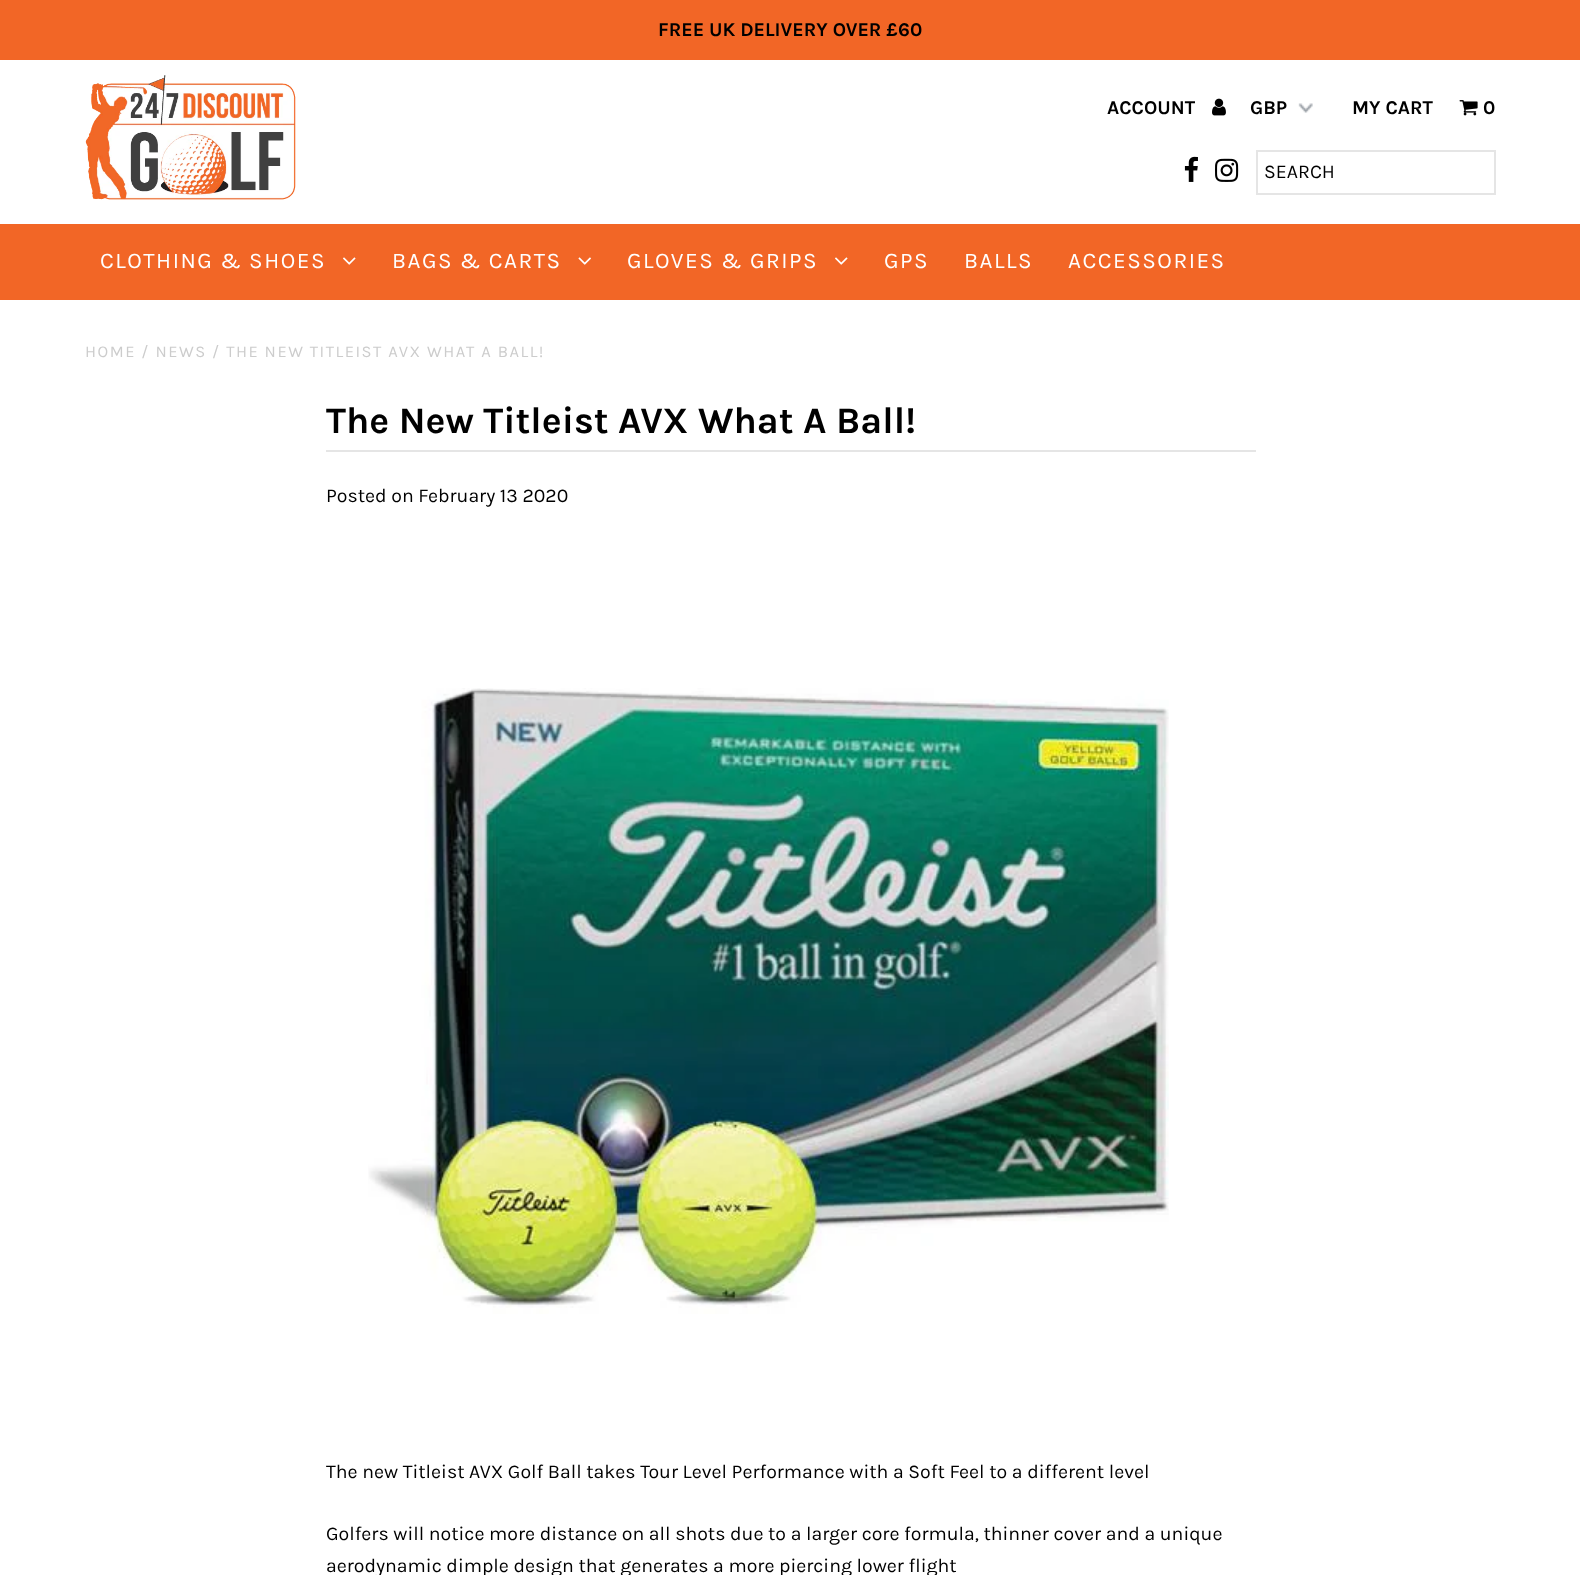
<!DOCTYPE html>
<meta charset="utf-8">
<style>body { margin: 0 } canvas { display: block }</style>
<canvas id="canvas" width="1580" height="1575"></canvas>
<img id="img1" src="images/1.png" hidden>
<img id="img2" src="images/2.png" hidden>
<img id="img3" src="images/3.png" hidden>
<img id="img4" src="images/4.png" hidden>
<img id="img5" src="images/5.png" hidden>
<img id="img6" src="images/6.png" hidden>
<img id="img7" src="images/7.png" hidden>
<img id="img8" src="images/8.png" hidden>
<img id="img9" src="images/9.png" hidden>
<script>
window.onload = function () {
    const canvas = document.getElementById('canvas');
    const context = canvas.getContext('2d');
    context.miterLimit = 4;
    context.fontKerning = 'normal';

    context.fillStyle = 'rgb(255, 255, 255)';
    context.fillRect(0, 0, 1580, 1575);
    context.fillStyle = 'rgb(242, 102, 38)';
    context.fillRect(0, 0, 1580, 60);
    context.drawImage(document.getElementById('img1'), 85, 75, 211, 125);
    context.drawImage(document.getElementById('img2'), 1212, 98, 14, 18);
    context.drawImage(document.getElementById('img3'), 1298, 103, 15, 10);
    context.drawImage(document.getElementById('img4'), 1459, 100, 19, 16);
    context.drawImage(document.getElementById('img5'), 1184, 156, 14, 26);
    context.drawImage(document.getElementById('img6'), 1215, 158, 24, 24);
    context.strokeStyle = 'rgb(229, 229, 229)';
    context.lineWidth = 2;
    context.strokeRect(1257, 151, 238, 43);
    context.fillRect(0, 224, 1580, 76);
    context.drawImage(document.getElementById('img7'), 343, 257, 13, 8);
    context.drawImage(document.getElementById('img8'), 578, 257, 13, 8);
    context.drawImage(document.getElementById('img7'), 835, 257, 13, 8);
    context.fillStyle = 'rgb(229, 229, 229)';
    context.fillRect(326, 450, 930, 2);
    context.drawImage(document.getElementById('img9'), 368, 688, 801, 626);
    context.font = 'bold 19.5px Karla';
    context.fillStyle = 'rgb(0, 0, 0)';
    context.fillText('FREE UK DELIVERY OVER £60', 658, 36);
    context.fillText('ACCOUNT', 1107, 114);
    context.fillText('GBP', 1250, 114);
    context.fillText('MY CART', 1352, 114);
    context.fillText('0', 1483, 114);
    context.font = '19.5px Karla';
    context.fillText('SEARCH', 1264, 178);
    context.letterSpacing = '1.5px';
    context.font = '22.5px Karla';
    context.fillStyle = 'rgb(255, 255, 255)';
    context.fillText('CLOTHING & SHOES', 100, 268);
    context.fillText('BAGS & CARTS', 392, 268);
    context.fillText('GLOVES & GRIPS', 627, 268);
    context.fillText('GPS', 884, 268);
    context.fillText('BALLS', 964, 268);
    context.fillText('ACCESSORIES', 1068, 268);
    context.font = '16.5px Karla';
    context.fillStyle = 'rgb(204, 204, 204)';
    context.fillText('HOME / NEWS / THE NEW TITLEIST AVX WHAT A BALL!', 85, 357);
    context.letterSpacing = '0px';
    context.font = 'bold 37.5px Karla';
    context.fillStyle = 'rgb(0, 0, 0)';
    context.fillText('The New Titleist AVX What A Ball!', 326, 433);
    context.font = '19.5px Karla';
    context.fillText('Posted on February 13 2020', 326, 502);
    context.fillText('The new Titleist AVX Golf Ball takes Tour Level Performance with a Soft Feel to a different level', 326, 1478);
    context.fillText('Golfers will notice more distance on all shots due to a larger core formula, thinner cover and a unique', 326, 1540);
    context.fillText('aerodynamic dimple design that generates a more piercing lower flight', 326, 1572);
};
</script>
